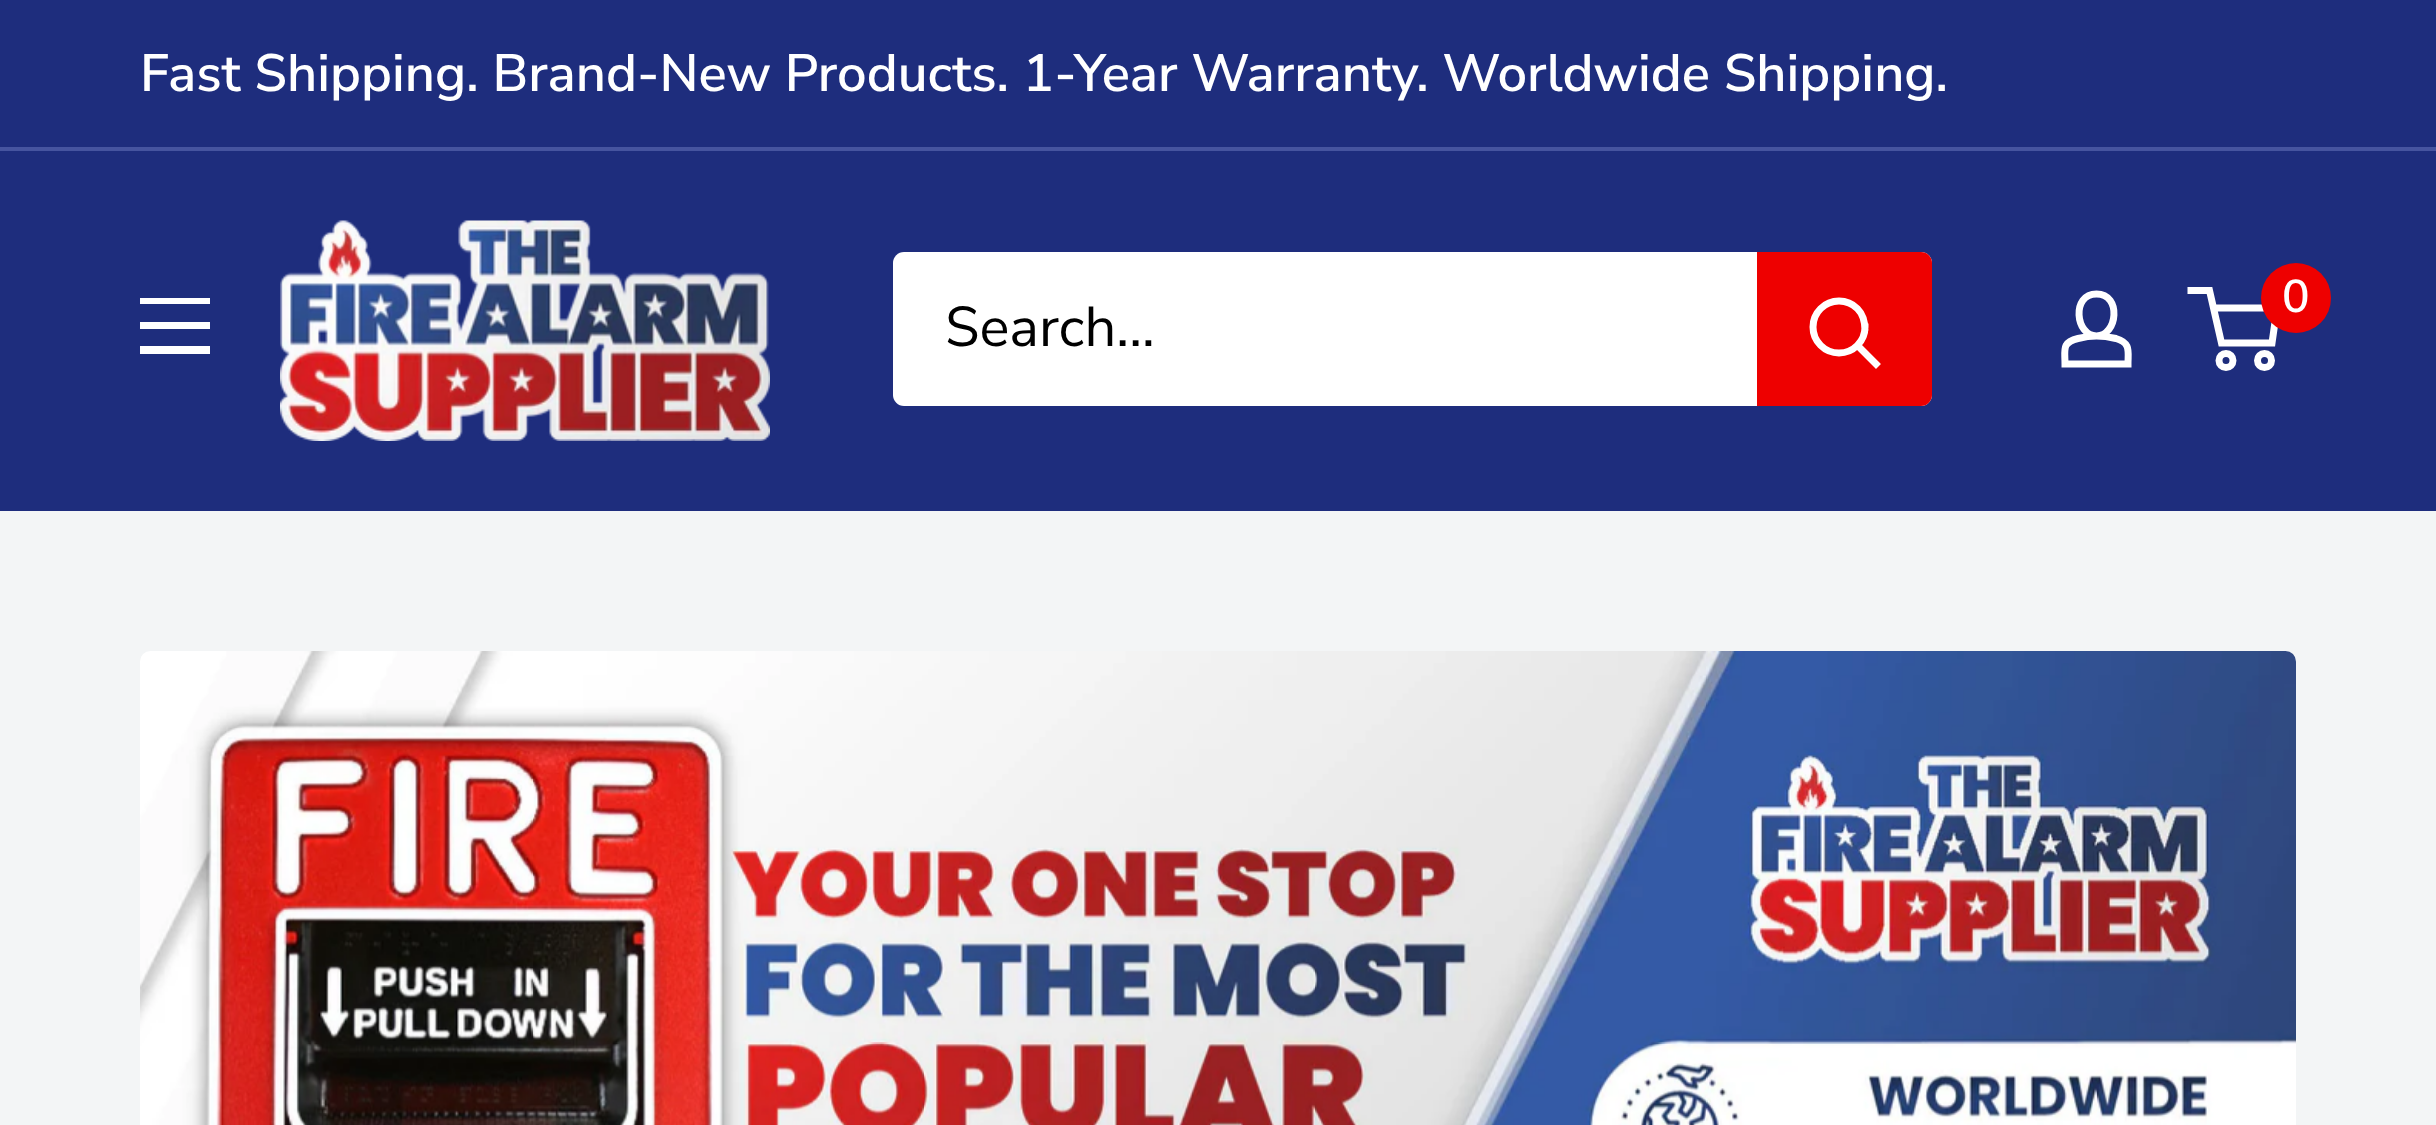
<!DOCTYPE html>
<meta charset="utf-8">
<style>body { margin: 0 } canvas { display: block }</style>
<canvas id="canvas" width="2436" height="1125"></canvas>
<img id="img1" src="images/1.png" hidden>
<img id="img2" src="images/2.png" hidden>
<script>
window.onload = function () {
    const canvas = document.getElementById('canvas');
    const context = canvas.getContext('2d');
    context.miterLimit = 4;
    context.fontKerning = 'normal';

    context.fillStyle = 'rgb(243, 245, 246)';
    context.fillRect(0, 0, 2436, 1125);
    context.fillStyle = 'rgb(30, 45, 125)';
    context.fillRect(0, 0, 2436, 147);
    context.fillStyle = 'rgb(70, 84, 159)';
    context.fillRect(0, 147, 2436, 4);
    context.fillStyle = 'rgb(30, 45, 125)';
    context.fillRect(0, 151, 2436, 360);
    context.fillStyle = 'rgb(255, 255, 255)';
    context.beginPath();
    context.moveTo(140, 346);
    context.lineTo(210, 346);
    context.lineTo(210, 354);
    context.lineTo(140, 354);
    context.closePath();
    context.moveTo(140, 298);
    context.lineTo(210, 298);
    context.lineTo(210, 304);
    context.lineTo(140, 304);
    context.closePath();
    context.moveTo(140, 322);
    context.lineTo(210, 322);
    context.lineTo(210, 329);
    context.lineTo(140, 329);
    context.closePath();
    context.fill('evenodd');
    context.drawImage(document.getElementById('img1'), 280, 220, 490, 221);
    context.beginPath();
    context.roundRect(893, 252, 1039, 154, 11);
    context.fill();
    context.fillStyle = 'rgb(238, 0, 0)';
    context.beginPath();
    context.roundRect(1757, 252, 175, 154, [0, 11, 11, 0]);
    context.fill();
    context.beginPath();
    context.moveTo(1876, 364);
    context.lineTo(1858.5, 346.5);
    context.strokeStyle = 'rgb(255, 255, 255)';
    context.lineWidth = 7;
    context.lineCap = 'square';
    context.stroke();
    context.beginPath();
    context.arc(1839, 327, 26, 0, 2 * Math.PI);
    context.stroke();
    context.beginPath();
    context.moveTo(2096.5, 336);
    context.bezierCurveTo(2103, 336, 2109.5, 337, 2116, 338.5);
    context.bezierCurveTo(2131, 343, 2128, 351, 2128, 364);
    context.lineTo(2065, 364);
    context.bezierCurveTo(2065, 349.5, 2061.5, 342.5, 2078, 338.5);
    context.bezierCurveTo(2084, 337, 2090.5, 336, 2096.5, 336);
    context.closePath();
    context.moveTo(2096.5, 336);
    context.bezierCurveTo(2075.5, 336, 2071, 294, 2096.5, 294);
    context.bezierCurveTo(2122, 294, 2117.5, 336, 2096.5, 336);
    context.closePath();
    context.lineCap = 'butt';
    context.stroke();
    context.beginPath();
    context.arc(2226, 360.5, 7, 0, 2 * Math.PI);
    context.stroke();
    context.beginPath();
    context.arc(2264.5, 360.5, 7, 0, 2 * Math.PI);
    context.stroke();
    context.beginPath();
    context.moveTo(2213, 308);
    context.lineTo(2277, 308);
    context.lineTo(2272, 343);
    context.lineTo(2221.5, 343);
    context.lineTo(2209.5, 290.5);
    context.lineTo(2187.5, 290.5);
    context.stroke();
    context.beginPath();
    context.arc(2296, 298, 35, 0, 2 * Math.PI);
    context.fill();
    context.drawImage(document.getElementById('img2'), 140, 651, 2156, 474);
    context.font = '600 52.5px Nunito Sans';
    context.fillStyle = 'rgb(255, 255, 255)';
    context.fillText('Fast Shipping. Brand-New Products. 1-Year Warranty. Worldwide Shipping.', 140, 91);
    context.font = '56px Nunito Sans';
    context.fillStyle = 'rgb(0, 0, 0)';
    context.fillText('Search...', 945, 346);
    context.font = '600 46px Nunito Sans';
    context.fillStyle = 'rgb(255, 255, 255)';
    context.fillText('0', 2282, 312);
};
</script>
